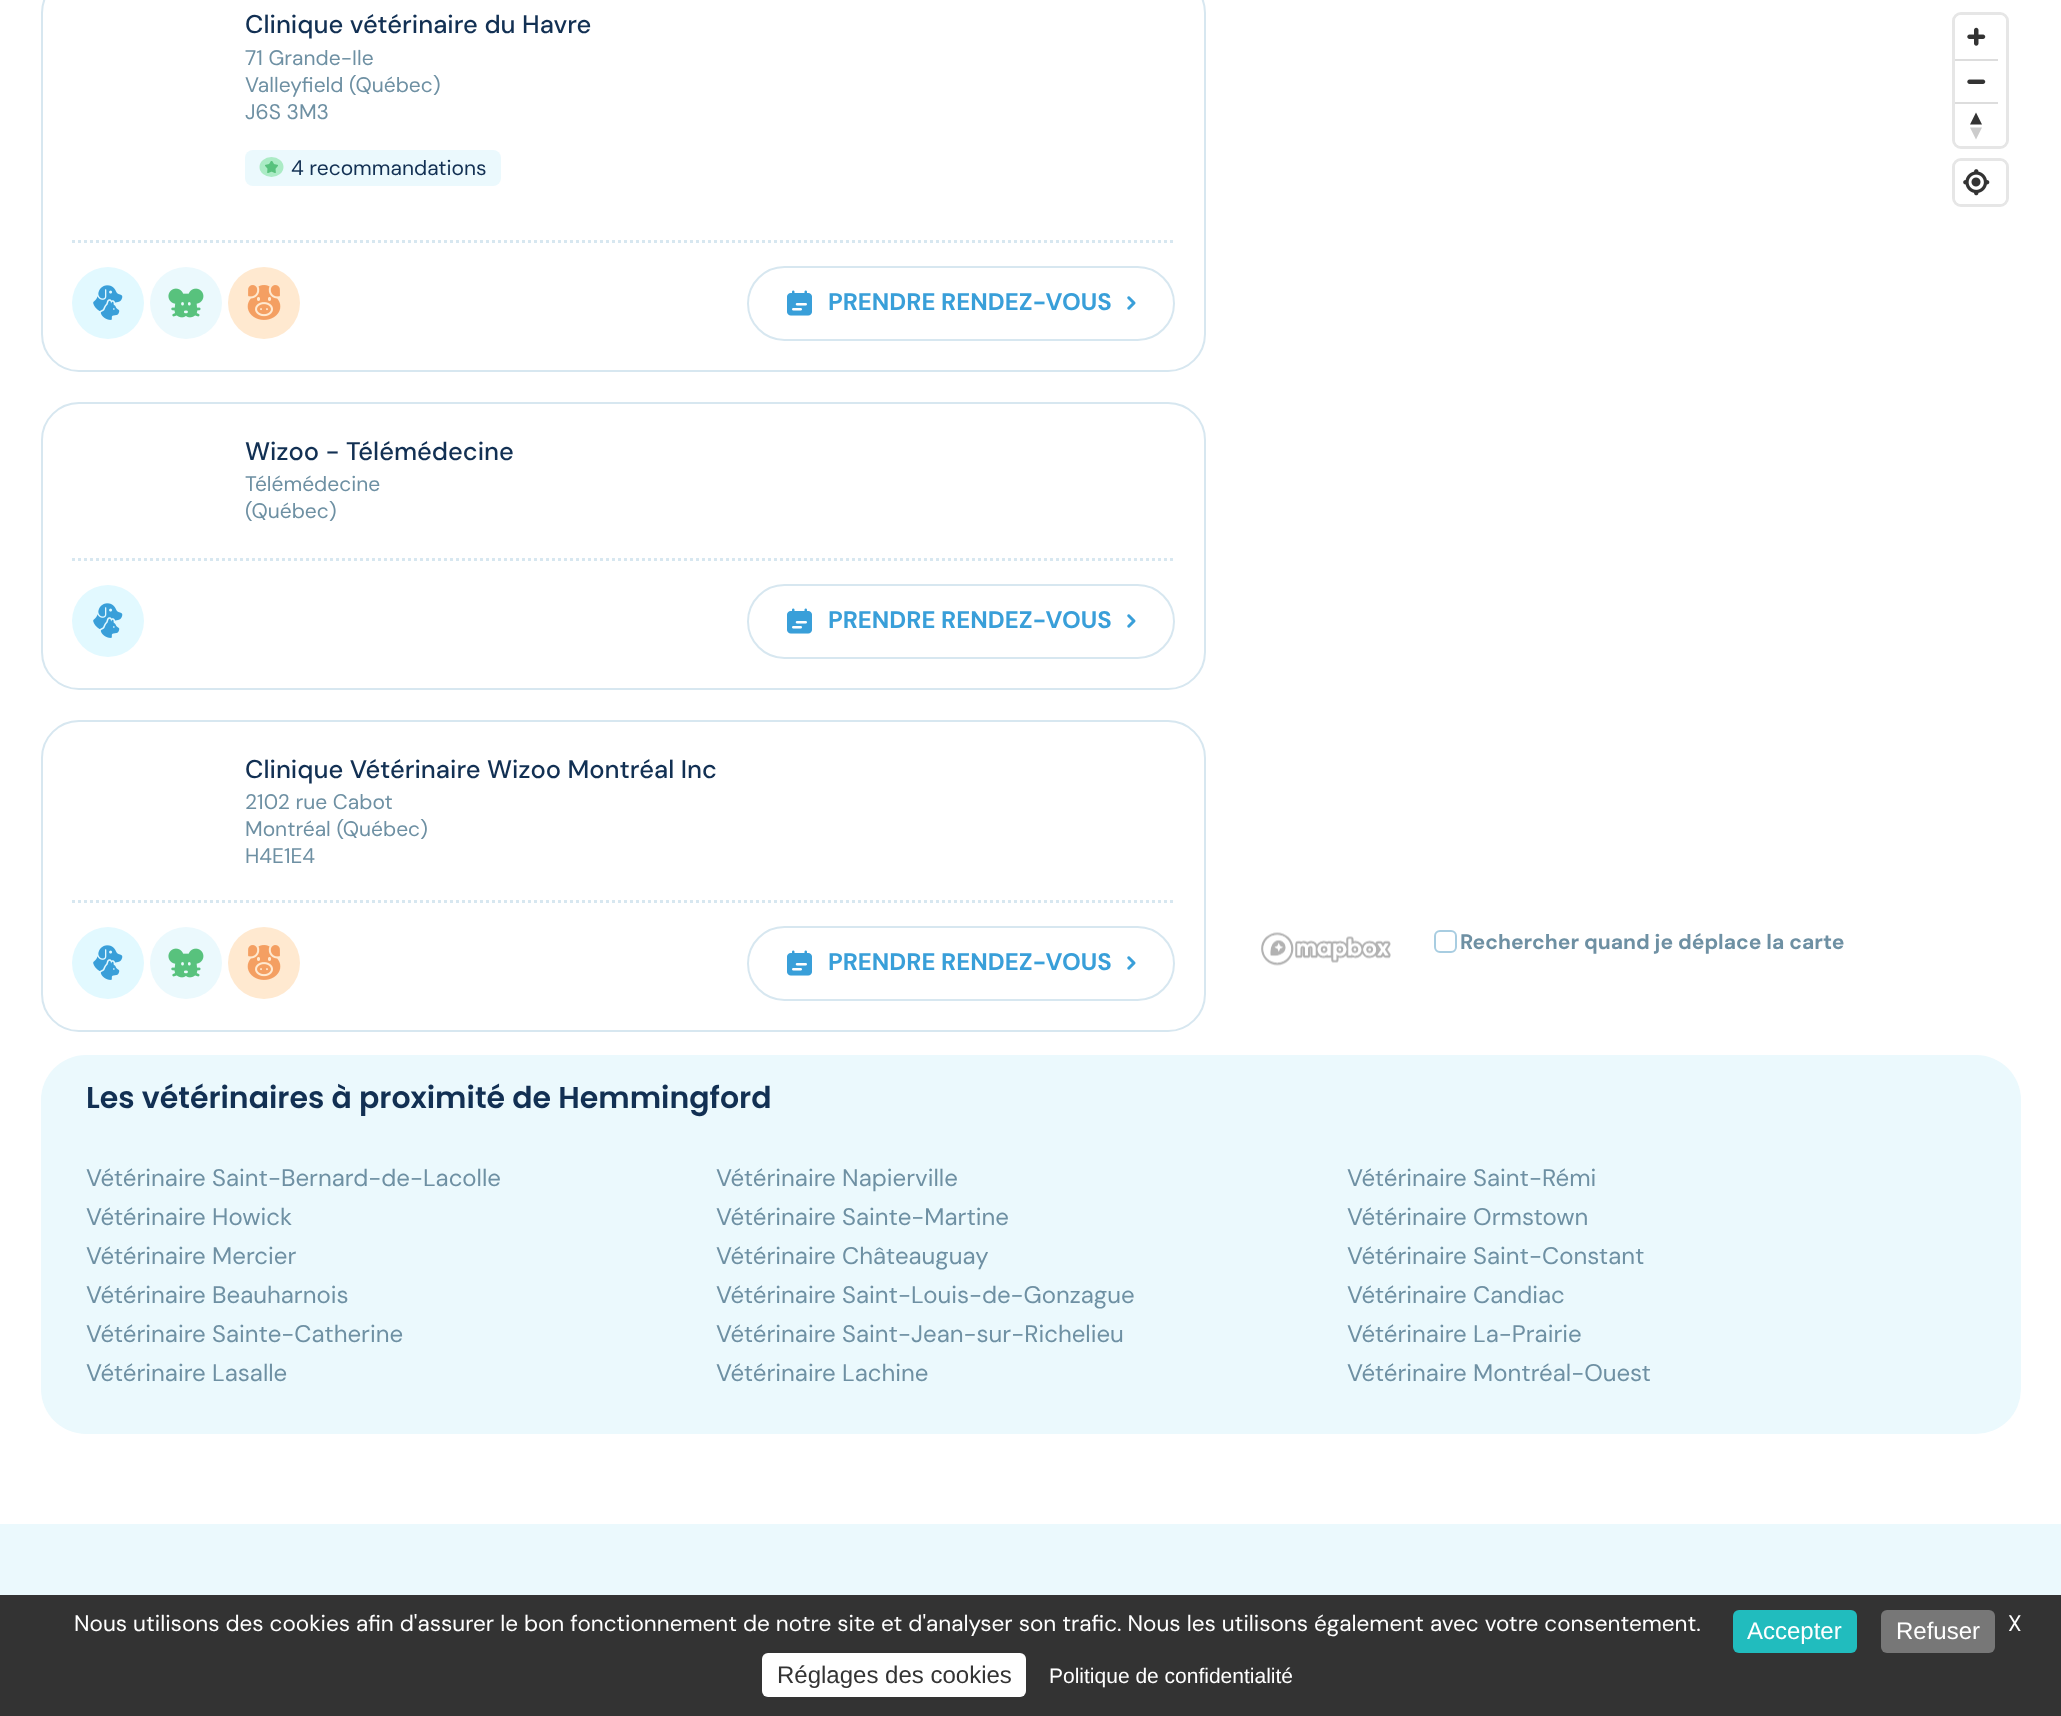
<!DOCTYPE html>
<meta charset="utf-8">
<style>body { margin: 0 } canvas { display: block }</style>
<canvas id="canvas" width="2061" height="1716"></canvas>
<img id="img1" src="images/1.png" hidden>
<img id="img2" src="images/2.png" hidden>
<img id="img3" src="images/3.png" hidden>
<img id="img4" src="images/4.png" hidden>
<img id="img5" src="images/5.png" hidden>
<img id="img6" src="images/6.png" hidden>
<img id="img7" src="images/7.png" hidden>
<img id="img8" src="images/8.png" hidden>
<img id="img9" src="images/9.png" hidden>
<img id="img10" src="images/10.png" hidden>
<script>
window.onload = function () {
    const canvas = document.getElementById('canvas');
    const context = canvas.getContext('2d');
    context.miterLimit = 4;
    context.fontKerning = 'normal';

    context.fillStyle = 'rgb(255, 255, 255)';
    context.fillRect(0, 0, 2061, 1716);
    context.beginPath();
    context.roundRect(42, -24, 1163, 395, 37);
    context.strokeStyle = 'rgb(215, 231, 240)';
    context.lineWidth = 2;
    context.stroke();
    context.fillStyle = 'rgb(235, 249, 253)';
    context.beginPath();
    context.roundRect(245, 150, 256, 36, 8);
    context.fill();
    context.fillStyle = 'rgb(171, 235, 197)';
    context.beginPath();
    context.ellipse(271.5, 167, 12, 10, 0, 0, 2 * Math.PI);
    context.fill();
    context.drawImage(document.getElementById('img1'), 265, 161, 13, 12);
    context.beginPath();
    context.moveTo(72, 241.5);
    context.lineTo(1174.5, 241.5);
    context.lineWidth = 3;
    context.setLineDash([3, 3]);
    context.stroke();
    context.fillStyle = 'rgb(226, 249, 255)';
    context.beginPath();
    context.arc(108, 303, 36, 0, 2 * Math.PI);
    context.fill();
    context.drawImage(document.getElementById('img2'), 93, 285, 30, 35);
    context.fillStyle = 'rgb(235, 249, 253)';
    context.beginPath();
    context.arc(186, 303, 36, 0, 2 * Math.PI);
    context.fill();
    context.drawImage(document.getElementById('img3'), 168, 288, 36, 30);
    context.fillStyle = 'rgb(255, 233, 208)';
    context.beginPath();
    context.arc(264, 303, 36, 0, 2 * Math.PI);
    context.fill();
    context.drawImage(document.getElementById('img4'), 247, 285, 34, 35);
    context.beginPath();
    context.roundRect(748, 267, 426, 73, 36.5);
    context.lineWidth = 2;
    context.setLineDash([]);
    context.stroke();
    context.drawImage(document.getElementById('img5'), 787, 290, 25, 26);
    context.drawImage(document.getElementById('img6'), 1127, 296, 9, 14);
    context.beginPath();
    context.roundRect(42, 403, 1163, 286, 37);
    context.stroke();
    context.beginPath();
    context.moveTo(72, 559.5);
    context.lineTo(1174.5, 559.5);
    context.lineWidth = 3;
    context.setLineDash([3, 3]);
    context.stroke();
    context.fillStyle = 'rgb(226, 249, 255)';
    context.beginPath();
    context.arc(108, 621, 36, 0, 2 * Math.PI);
    context.fill();
    context.drawImage(document.getElementById('img2'), 93, 603, 30, 35);
    context.beginPath();
    context.roundRect(748, 585, 426, 73, 36.5);
    context.lineWidth = 2;
    context.setLineDash([]);
    context.stroke();
    context.drawImage(document.getElementById('img5'), 787, 608, 25, 26);
    context.drawImage(document.getElementById('img6'), 1127, 614, 9, 14);
    context.beginPath();
    context.roundRect(42, 721, 1163, 310, 37);
    context.stroke();
    context.beginPath();
    context.moveTo(72, 901.5);
    context.lineTo(1174.5, 901.5);
    context.lineWidth = 3;
    context.setLineDash([3, 3]);
    context.stroke();
    context.beginPath();
    context.arc(108, 963, 36, 0, 2 * Math.PI);
    context.fill();
    context.drawImage(document.getElementById('img2'), 93, 945, 30, 35);
    context.fillStyle = 'rgb(235, 249, 253)';
    context.beginPath();
    context.arc(186, 963, 36, 0, 2 * Math.PI);
    context.fill();
    context.drawImage(document.getElementById('img3'), 168, 948, 36, 30);
    context.fillStyle = 'rgb(255, 233, 208)';
    context.beginPath();
    context.arc(264, 963, 36, 0, 2 * Math.PI);
    context.fill();
    context.drawImage(document.getElementById('img4'), 247, 945, 34, 35);
    context.beginPath();
    context.roundRect(748, 927, 426, 73, 36.5);
    context.lineWidth = 2;
    context.setLineDash([]);
    context.stroke();
    context.drawImage(document.getElementById('img5'), 787, 950, 25, 26);
    context.drawImage(document.getElementById('img6'), 1127, 956, 9, 14);
    context.beginPath();
    context.roundRect(1953.5, 13.5, 54, 134, 7.5);
    context.strokeStyle = 'rgb(230, 230, 230)';
    context.lineWidth = 3;
    context.stroke();
    context.fillStyle = 'rgb(255, 255, 255)';
    context.beginPath();
    context.roundRect(1955, 15, 51, 131, 6);
    context.fill();
    context.drawImage(document.getElementById('img7'), 1967, 27, 19, 19);
    context.fillStyle = 'rgb(221, 221, 221)';
    context.fillRect(1955, 59, 43, 2);
    context.drawImage(document.getElementById('img8'), 1967, 79, 19, 5);
    context.fillRect(1955, 102, 43, 2);
    context.fillStyle = 'rgb(51, 51, 51)';
    context.beginPath();
    context.moveTo(1970, 124.5);
    context.lineTo(1976, 112.5);
    context.lineTo(1982, 124.5);
    context.closePath();
    context.fill();
    context.fillStyle = 'rgb(204, 204, 204)';
    context.beginPath();
    context.moveTo(1970, 127.5);
    context.lineTo(1976, 139.5);
    context.lineTo(1982, 127.5);
    context.closePath();
    context.fill();
    context.beginPath();
    context.roundRect(1953.5, 159.5, 54, 46, 7.5);
    context.stroke();
    context.fillStyle = 'rgb(255, 255, 255)';
    context.beginPath();
    context.roundRect(1955, 161, 51, 43, 6);
    context.fill();
    context.drawImage(document.getElementById('img9'), 1963, 169, 27, 27);
    context.drawImage(document.getElementById('img10'), 1261, 932, 130, 34);
    context.beginPath();
    context.roundRect(1435, 931, 21, 21, 5);
    context.strokeStyle = 'rgb(168, 205, 225)';
    context.lineWidth = 2;
    context.stroke();
    context.fillStyle = 'rgb(235, 249, 253)';
    context.beginPath();
    context.roundRect(41, 1055, 1980, 379, 45);
    context.fill();
    context.fillRect(0, 1524, 2061, 71);
    context.fillStyle = 'rgb(51, 51, 51)';
    context.fillRect(0, 1595, 2061, 121);
    context.fillStyle = 'rgb(33, 188, 190)';
    context.beginPath();
    context.roundRect(1733, 1610, 124, 43, 6);
    context.fill();
    context.fillStyle = 'rgb(119, 119, 119)';
    context.beginPath();
    context.roundRect(1881, 1610, 114, 43, 6);
    context.fill();
    context.fillStyle = 'rgb(255, 255, 255)';
    context.beginPath();
    context.roundRect(762, 1653, 264, 44, 6);
    context.fill();
    context.font = '500 25.5px DM Sans';
    context.fillStyle = 'rgb(18, 48, 83)';
    context.fillText('Clinique vétérinaire du Havre', 245, 33);
    context.font = '21px DM Sans';
    context.fillStyle = 'rgb(110, 144, 163)';
    context.fillText('71 Grande-Ile', 245, 65);
    context.fillText('Valleyfield (Québec)', 245, 92);
    context.fillText('J6S 3M3', 245, 119);
    context.fillStyle = 'rgb(18, 48, 83)';
    context.fillText('4 recommandations', 291, 175);
    context.font = 'bold 24px DM Sans';
    context.fillStyle = 'rgb(57, 159, 217)';
    context.fillText('PRENDRE RENDEZ-VOUS', 828, 310);
    context.font = '500 25.5px DM Sans';
    context.fillStyle = 'rgb(18, 48, 83)';
    context.fillText('Wizoo - Télémédecine', 245, 460);
    context.font = '21px DM Sans';
    context.fillStyle = 'rgb(110, 144, 163)';
    context.fillText('Télémédecine', 245, 491);
    context.fillText('(Québec)', 245, 518);
    context.font = 'bold 24px DM Sans';
    context.fillStyle = 'rgb(57, 159, 217)';
    context.fillText('PRENDRE RENDEZ-VOUS', 828, 628);
    context.font = '500 25.5px DM Sans';
    context.fillStyle = 'rgb(18, 48, 83)';
    context.fillText('Clinique Vétérinaire Wizoo Montréal Inc', 245, 778);
    context.font = '21px DM Sans';
    context.fillStyle = 'rgb(110, 144, 163)';
    context.fillText('2102 rue Cabot', 245, 809);
    context.fillText('Montréal (Québec)', 245, 836);
    context.fillText('H4E1E4', 245, 863);
    context.font = 'bold 24px DM Sans';
    context.fillStyle = 'rgb(57, 159, 217)';
    context.fillText('PRENDRE RENDEZ-VOUS', 828, 970);
    context.font = 'bold 21px DM Sans';
    context.fillStyle = 'rgb(110, 144, 163)';
    context.fillText('Rechercher quand je déplace la carte', 1460, 949);
    context.font = '600 30px Poppins';
    context.fillStyle = 'rgb(18, 48, 83)';
    context.fillText('Les vétérinaires à proximité de Hemmingford', 86, 1108);
    context.font = '24px DM Sans';
    context.fillStyle = 'rgb(110, 144, 163)';
    context.fillText('Vétérinaire Saint-Bernard-de-Lacolle', 86, 1186);
    context.fillText('Vétérinaire Napierville', 716, 1186);
    context.fillText('Vétérinaire Saint-Rémi', 1347, 1186);
    context.fillText('Vétérinaire Howick', 86, 1225);
    context.fillText('Vétérinaire Sainte-Martine', 716, 1225);
    context.fillText('Vétérinaire Ormstown', 1347, 1225);
    context.fillText('Vétérinaire Mercier', 86, 1264);
    context.fillText('Vétérinaire Châteauguay', 716, 1264);
    context.fillText('Vétérinaire Saint-Constant', 1347, 1264);
    context.fillText('Vétérinaire Beauharnois', 86, 1303);
    context.fillText('Vétérinaire Saint-Louis-de-Gonzague', 716, 1303);
    context.fillText('Vétérinaire Candiac', 1347, 1303);
    context.fillText('Vétérinaire Sainte-Catherine', 86, 1342);
    context.fillText('Vétérinaire Saint-Jean-sur-Richelieu', 716, 1342);
    context.fillText('Vétérinaire La-Prairie', 1347, 1342);
    context.fillText('Vétérinaire Lasalle', 86, 1381);
    context.fillText('Vétérinaire Lachine', 716, 1381);
    context.fillText('Vétérinaire Montréal-Ouest', 1347, 1381);
    context.font = '22.5px DM Sans';
    context.fillStyle = 'rgb(255, 255, 255)';
    context.fillText('Nous utilisons des cookies afin d\'assurer le bon fonctionnement de notre site et d\'analyser son trafic. Nous les utilisons également avec votre consentement.', 74, 1631);
    context.font = '24px Liberation Sans';
    context.fillText('Accepter', 1747, 1639);
    context.fillText('Refuser', 1896, 1639);
    context.font = '22.5px DM Sans';
    context.fillText('X', 2008, 1631);
    context.font = '24px Liberation Sans';
    context.fillStyle = 'rgb(51, 51, 51)';
    context.fillText('Réglages des cookies', 777, 1683);
    context.font = '21px Liberation Sans';
    context.fillStyle = 'rgb(255, 255, 255)';
    context.fillText('Politique de confidentialité', 1049, 1683);
};
</script>
